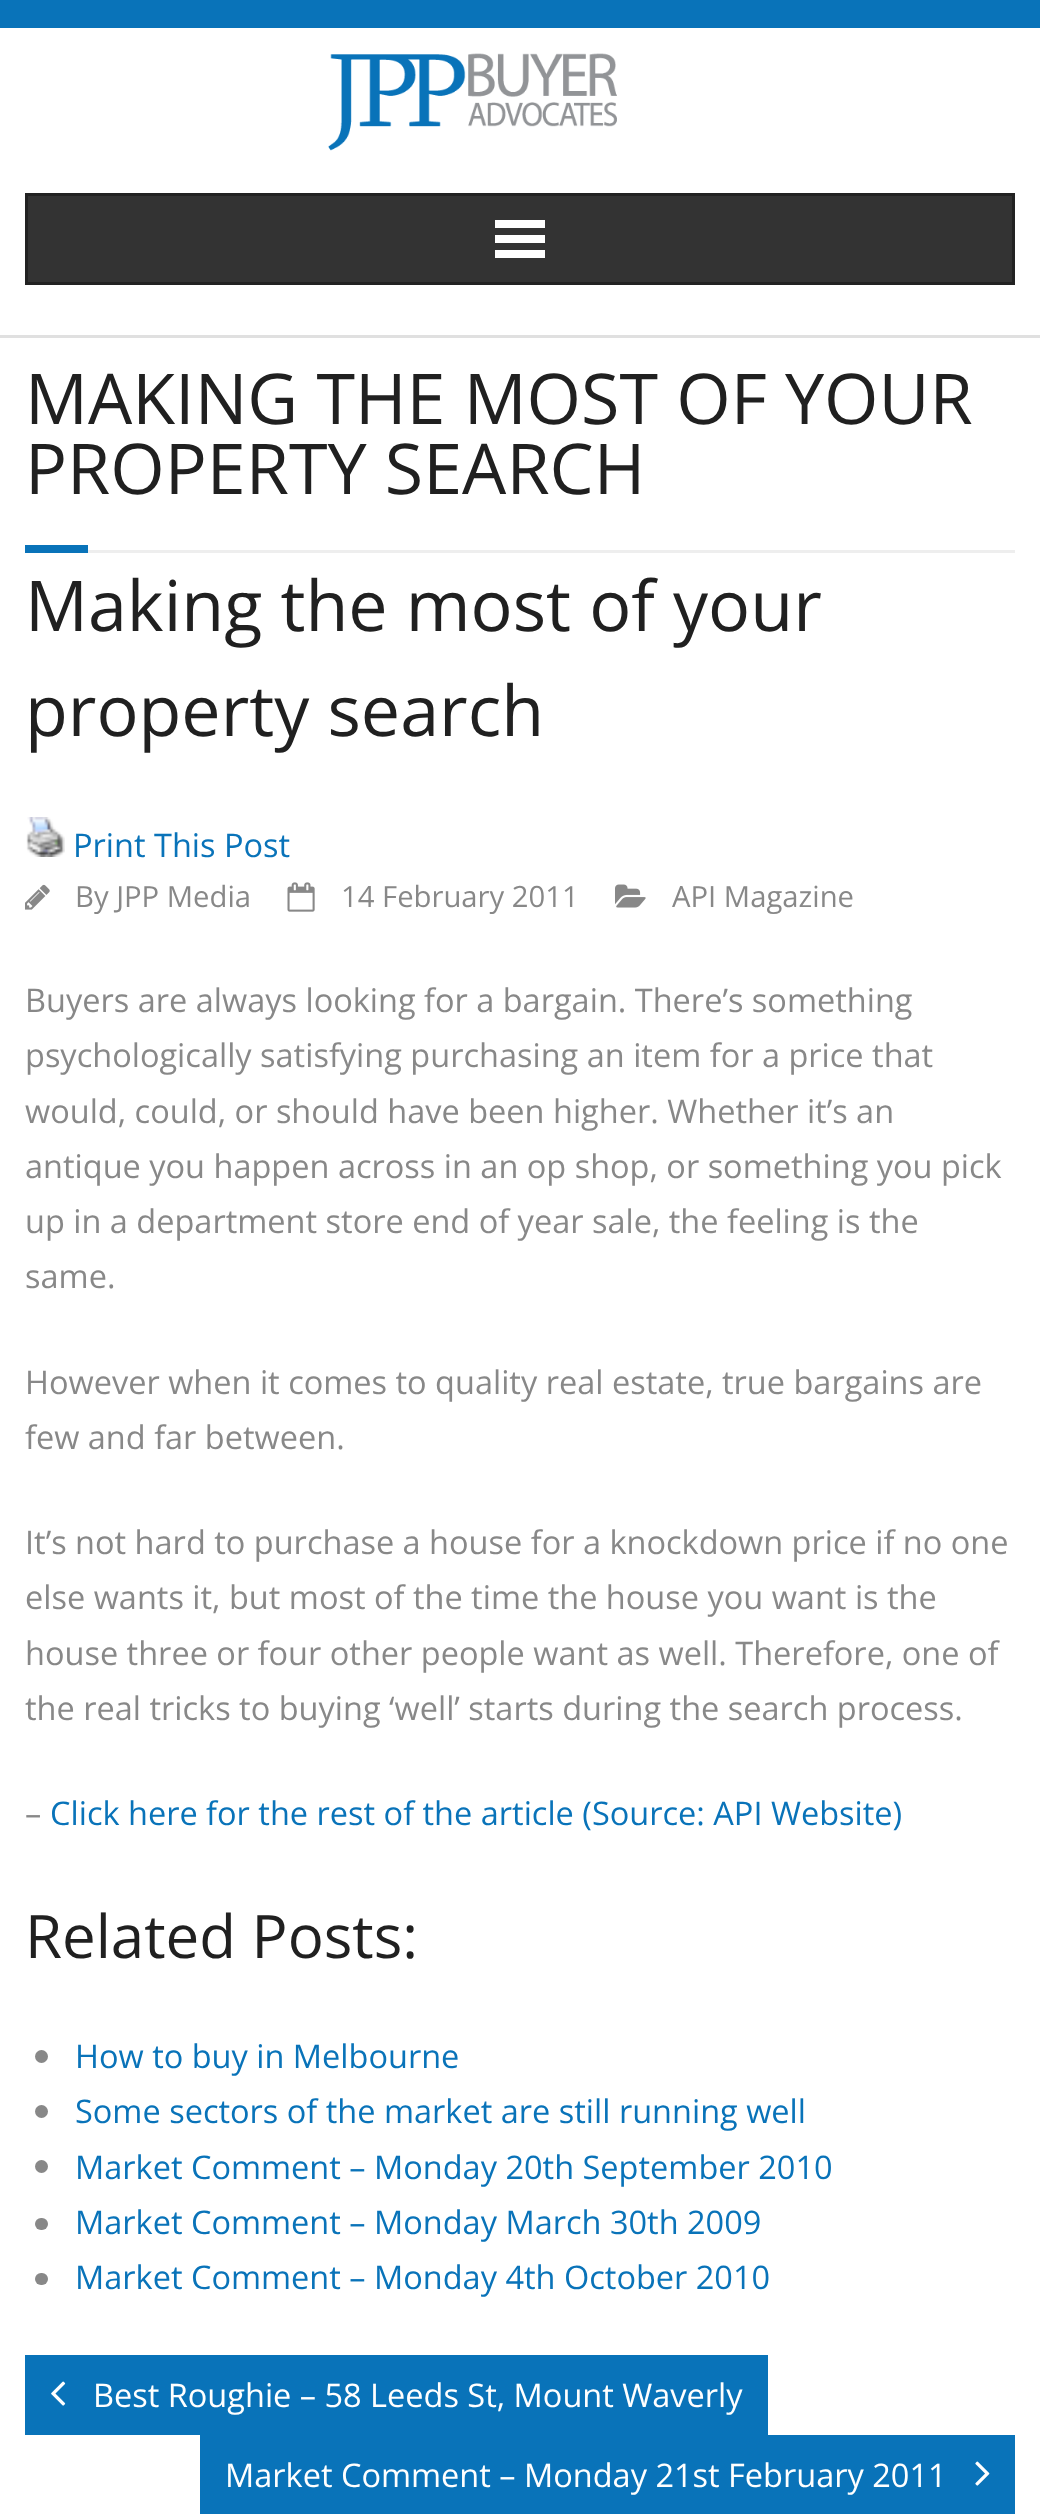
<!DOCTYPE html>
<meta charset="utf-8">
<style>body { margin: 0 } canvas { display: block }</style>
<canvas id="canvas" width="1040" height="2514"></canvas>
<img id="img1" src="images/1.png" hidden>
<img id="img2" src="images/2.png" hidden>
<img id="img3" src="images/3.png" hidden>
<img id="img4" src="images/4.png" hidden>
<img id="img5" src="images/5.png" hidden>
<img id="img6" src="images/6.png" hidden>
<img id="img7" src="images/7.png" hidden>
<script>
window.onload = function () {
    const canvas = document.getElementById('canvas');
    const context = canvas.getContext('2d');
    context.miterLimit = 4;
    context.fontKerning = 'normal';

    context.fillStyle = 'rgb(255, 255, 255)';
    context.fillRect(0, 0, 1040, 2514);
    context.fillStyle = 'rgb(9, 115, 185)';
    context.fillRect(0, 0, 1040, 28);
    context.fillStyle = 'rgb(224, 224, 224)';
    context.fillRect(0, 335, 1040, 3);
    context.drawImage(document.getElementById('img1'), 328, 53, 289, 98);
    context.fillStyle = 'rgb(51, 51, 51)';
    context.beginPath();
    context.rect(26.5, 194.5, 987, 89);
    context.fill();
    context.strokeStyle = 'rgb(34, 34, 34)';
    context.lineWidth = 3;
    context.stroke();
    context.fillStyle = 'rgb(255, 255, 255)';
    context.fillRect(495, 220, 50, 8);
    context.fillRect(495, 235, 50, 8);
    context.fillRect(495, 250, 50, 8);
    context.fillStyle = 'rgb(9, 115, 185)';
    context.fillRect(25, 545, 63, 8);
    context.fillStyle = 'rgb(238, 238, 238)';
    context.fillRect(88, 550, 927, 3);
    context.drawImage(document.getElementById('img2'), 26, 817, 39, 40);
    context.drawImage(document.getElementById('img3'), 25, 884, 25, 26);
    context.drawImage(document.getElementById('img4'), 287, 882, 28, 30);
    context.drawImage(document.getElementById('img5'), 615, 884, 31, 24);
    context.fillStyle = 'rgb(136, 136, 136)';
    context.beginPath();
    context.arc(41.5, 2056.5, 6.5, 0, 2 * Math.PI);
    context.fill();
    context.beginPath();
    context.arc(41.5, 2111.5, 6.5, 0, 2 * Math.PI);
    context.fill();
    context.beginPath();
    context.arc(41.5, 2166.5, 6.5, 0, 2 * Math.PI);
    context.fill();
    context.beginPath();
    context.roundRect(35, 2218, 13, 12, 6);
    context.fill();
    context.beginPath();
    context.roundRect(35, 2273, 13, 12, 6);
    context.fill();
    context.fillStyle = 'rgb(9, 115, 185)';
    context.fillRect(25, 2355, 743, 80);
    context.drawImage(document.getElementById('img6'), 51, 2381, 15, 25);
    context.fillRect(200, 2435, 815, 79);
    context.drawImage(document.getElementById('img7'), 975, 2461, 15, 25);
    context.font = '70px Open Sans';
    context.fillStyle = 'rgb(32, 32, 32)';
    context.fillText('MAKING THE MOST OF YOUR', 25, 424);
    context.fillText('PROPERTY SEARCH', 25, 494);
    context.fillText('Making the most of your', 25, 631);
    context.fillText('property search', 25, 736);
    context.font = '32.5px Open Sans';
    context.fillStyle = 'rgb(9, 115, 185)';
    context.fillText('Print This Post', 73, 857);
    context.font = '29.25px Open Sans';
    context.fillStyle = 'rgb(136, 136, 136)';
    context.fillText('By JPP Media', 75, 907);
    context.fillText('14 February 2011', 341, 907);
    context.fillText('API Magazine', 672, 907);
    context.font = '32.5px Open Sans';
    context.fillText('Buyers are always looking for a bargain. There’s something', 25, 1012);
    context.fillText('psychologically satisfying purchasing an item for a price that', 25, 1067);
    context.fillText('would, could, or should have been higher. Whether it’s an', 25, 1123);
    context.fillText('antique you happen across in an op shop, or something you pick', 25, 1178);
    context.fillText('up in a department store end of year sale, the feeling is the', 25, 1233);
    context.fillText('same.', 25, 1288);
    context.fillText('However when it comes to quality real estate, true bargains are', 25, 1394);
    context.fillText('few and far between.', 25, 1449);
    context.fillText('It’s not hard to purchase a house for a knockdown price if no one', 25, 1554);
    context.fillText('else wants it, but most of the time the house you want is the', 25, 1609);
    context.fillText('house three or four other people want as well. Therefore, one of', 25, 1665);
    context.fillText('the real tricks to buying ‘well’ starts during the search process.', 25, 1720);
    context.fillText('–', 25, 1825);
    context.fillStyle = 'rgb(9, 115, 185)';
    context.fillText('Click here for the rest of the article (Source: API Website)', 50, 1825);
    context.font = '60px Open Sans';
    context.fillStyle = 'rgb(32, 32, 32)';
    context.fillText('Related Posts:', 25, 1958);
    context.font = '32.5px Open Sans';
    context.fillStyle = 'rgb(9, 115, 185)';
    context.fillText('How to buy in Melbourne', 75, 2068);
    context.fillText('Some sectors of the market are still running well', 75, 2123);
    context.fillText('Market Comment – Monday 20th September 2010', 75, 2179);
    context.fillText('Market Comment – Monday March 30th 2009', 75, 2234);
    context.fillText('Market Comment – Monday 4th October 2010', 75, 2289);
    context.fillStyle = 'rgb(255, 255, 255)';
    context.fillText('Best Roughie – 58 Leeds St, Mount Waverly', 93, 2407);
    context.fillText('Market Comment – Monday 21st February 2011', 225, 2487);
};
</script>
